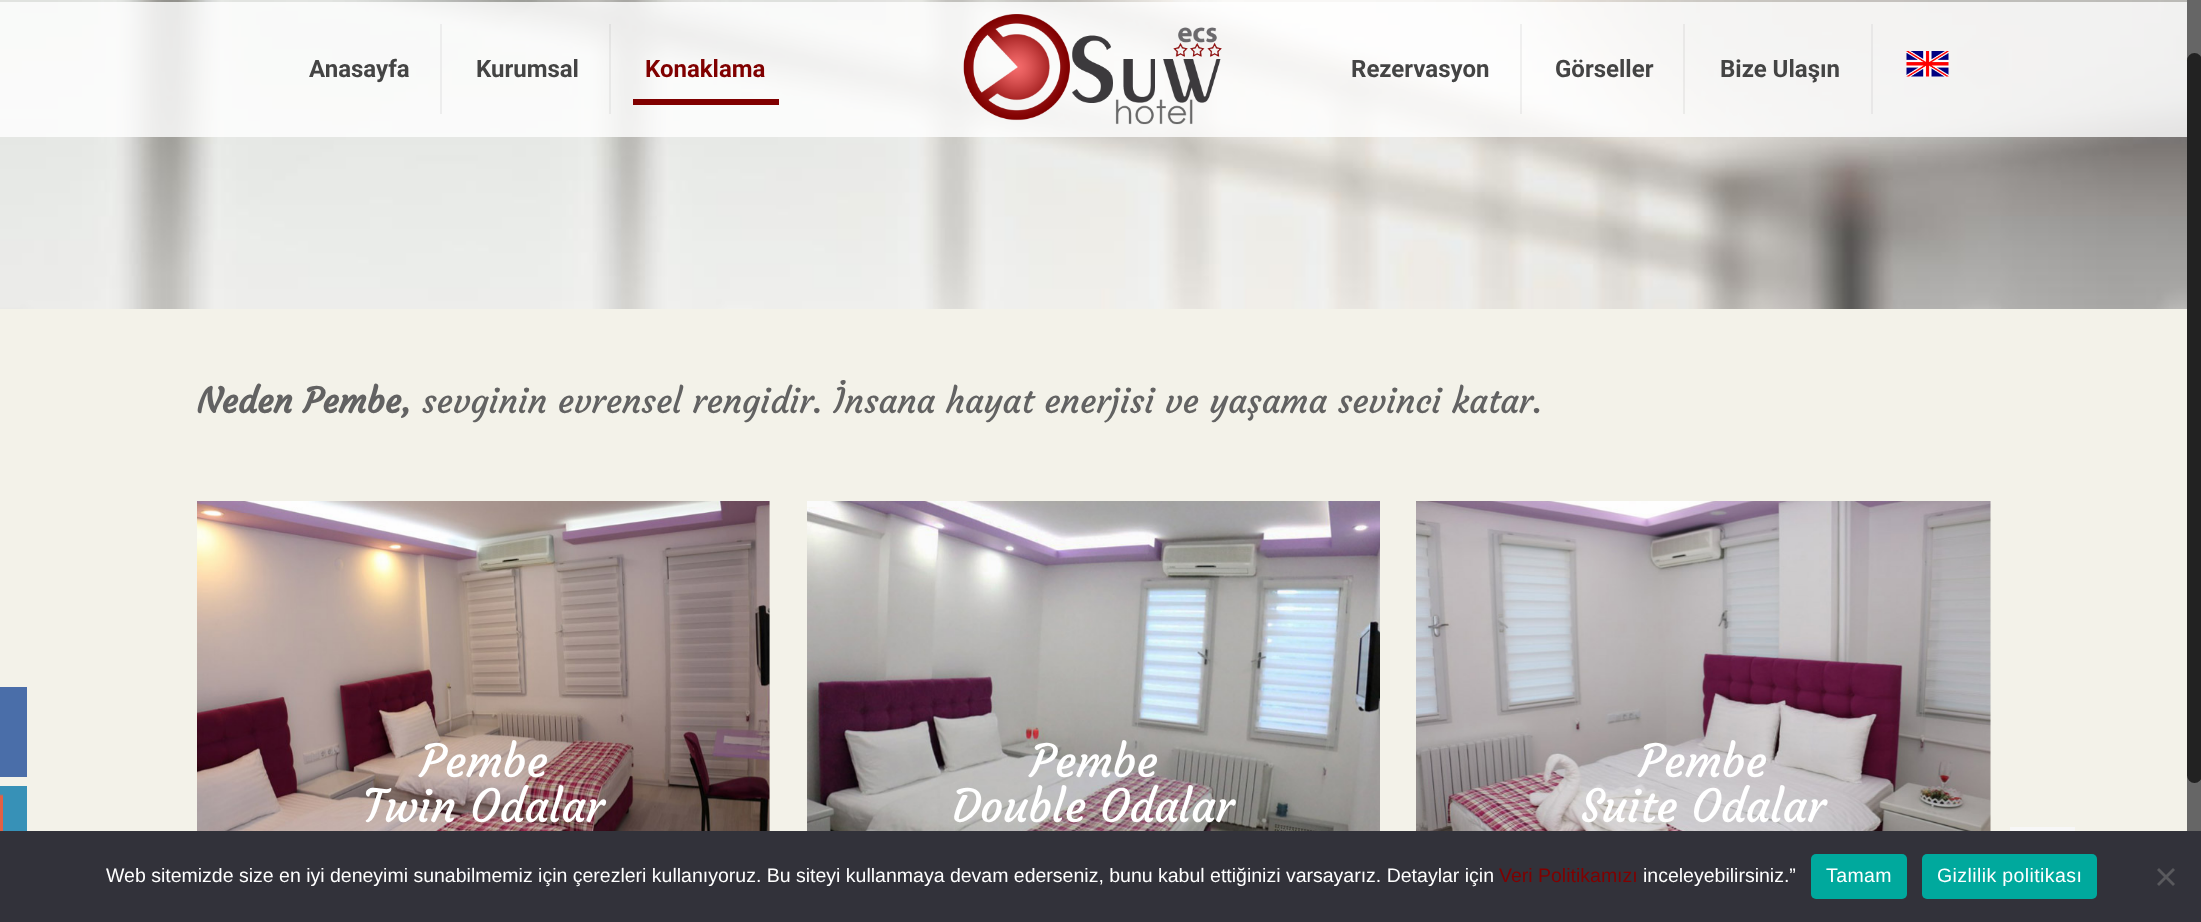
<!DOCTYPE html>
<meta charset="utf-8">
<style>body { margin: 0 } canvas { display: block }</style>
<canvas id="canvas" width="2201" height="922"></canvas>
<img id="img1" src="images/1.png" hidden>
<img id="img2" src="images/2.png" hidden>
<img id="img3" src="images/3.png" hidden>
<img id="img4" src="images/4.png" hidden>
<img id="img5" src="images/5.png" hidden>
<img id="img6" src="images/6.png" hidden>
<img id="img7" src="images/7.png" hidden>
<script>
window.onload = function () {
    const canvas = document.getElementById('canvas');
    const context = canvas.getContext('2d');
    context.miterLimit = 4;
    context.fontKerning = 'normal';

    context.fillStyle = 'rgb(255, 255, 255)';
    context.fillRect(0, 0, 2201, 922);
    context.fillStyle = 'rgb(243, 242, 233)';
    context.fillRect(0, 309, 2187, 522);
    context.fillStyle = 'rgb(74, 110, 169)';
    context.fillRect(0, 687, 27, 90);
    context.fillStyle = 'rgb(55, 145, 183)';
    context.fillRect(0, 786, 27, 45);
    context.drawImage(document.getElementById('img1'), 0, 794, 3, 37);
    context.drawImage(document.getElementById('img2'), 0, 0, 2187, 309);
    context.fillStyle = 'rgba(255, 255, 255, 0.8)';
    context.fillRect(0, 2, 2187, 135);
    context.drawImage(document.getElementById('img3'), 963, 14, 259, 111);
    context.fillStyle = 'rgb(237, 237, 237)';
    context.fillRect(440, 24, 2, 90);
    context.fillStyle = 'rgba(0, 0, 0, 0.05)';
    context.fillRect(609, 24, 2, 90);
    context.fillStyle = 'rgb(128, 0, 0)';
    context.fillRect(633, 99, 146, 6);
    context.fillStyle = 'rgba(0, 0, 0, 0.05)';
    context.fillRect(1520, 24, 2, 90);
    context.fillRect(1683, 24, 2, 90);
    context.fillStyle = 'rgb(232, 231, 231)';
    context.fillRect(1871, 24, 2, 90);
    context.drawImage(document.getElementById('img4'), 1906, 51, 43, 26);
    context.drawImage(document.getElementById('img5'), 197, 501, 573, 330);
    context.drawImage(document.getElementById('img6'), 807, 501, 573, 330);
    context.drawImage(document.getElementById('img7'), 1416, 501, 575, 330);
    context.fillStyle = 'rgb(247, 247, 247)';
    context.fillRect(2010, 827, 65, 4);
    context.fillStyle = 'rgb(102, 102, 102)';
    context.fillRect(2187, 0, 14, 831);
    context.fillStyle = 'rgb(34, 34, 34)';
    context.beginPath();
    context.roundRect(2187, 53, 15, 730, 7.5);
    context.fill();
    context.fillStyle = 'rgb(50, 50, 58)';
    context.fillRect(0, 831, 2201, 91);
    context.fillStyle = 'rgb(0, 169, 157)';
    context.beginPath();
    context.roundRect(1811, 854, 96, 45, 5);
    context.fill();
    context.beginPath();
    context.roundRect(1922, 854, 175, 45, 5);
    context.fill();
    context.fillStyle = 'rgb(89, 89, 93)';
    context.beginPath();
    context.moveTo(2173, 868);
    context.lineTo(2175, 870);
    context.lineTo(2159, 886);
    context.lineTo(2157, 884);
    context.closePath();
    context.fill();
    context.beginPath();
    context.moveTo(2157, 870);
    context.lineTo(2159, 868);
    context.lineTo(2175, 884);
    context.lineTo(2173, 886);
    context.closePath();
    context.fill();
    context.font = 'bold 24px Roboto';
    context.fillStyle = 'rgb(68, 68, 68)';
    context.fillText('Anasayfa', 309, 77);
    context.fillText('Kurumsal', 476, 77);
    context.fillStyle = 'rgb(128, 0, 0)';
    context.fillText('Konaklama', 645, 77);
    context.fillStyle = 'rgb(68, 68, 68)';
    context.fillText('Rezervasyon', 1351, 77);
    context.fillText('Görseller', 1555, 77);
    context.fillText('Bize Ulaşın', 1720, 77);
    context.font = 'bold 34.5px Courgette';
    context.fillStyle = 'rgb(98, 98, 98)';
    context.fillText('Neden Pembe,', 197, 413);
    context.font = '34.5px Courgette';
    context.fillText('sevginin evrensel rengidir. İnsana hayat enerjisi ve yaşama sevinci katar.', 422, 413);
    context.font = '45px Courgette';
    context.fillStyle = 'rgb(255, 255, 255)';
    context.fillText('Pembe', 420, 777);
    context.fillText('Twin Odalar', 363, 822);
    context.fillText('Pembe', 1030, 777);
    context.fillText('Double Odalar', 952, 822);
    context.fillText('Pembe', 1639, 777);
    context.fillText('Suite Odalar', 1581, 822);
    context.font = '19.5px Liberation Sans';
    context.fillText('Web sitemizde size en iyi deneyimi sunabilmemiz için çerezleri kullanıyoruz. Bu siteyi kullanmaya devam ederseniz, bunu kabul ettiğinizi varsayarız. Detaylar için', 106, 882);
    context.fillStyle = 'rgb(128, 0, 0)';
    context.fillText('Veri Politikamızı', 1499, 882);
    context.fillStyle = 'rgb(255, 255, 255)';
    context.fillText('inceleyebilirsiniz.”', 1643, 882);
    context.letterSpacing = '0.4px';
    context.fillText('Tamam', 1826, 882);
    context.fillText('Gizlilik politikası', 1937, 882);
};
</script>
